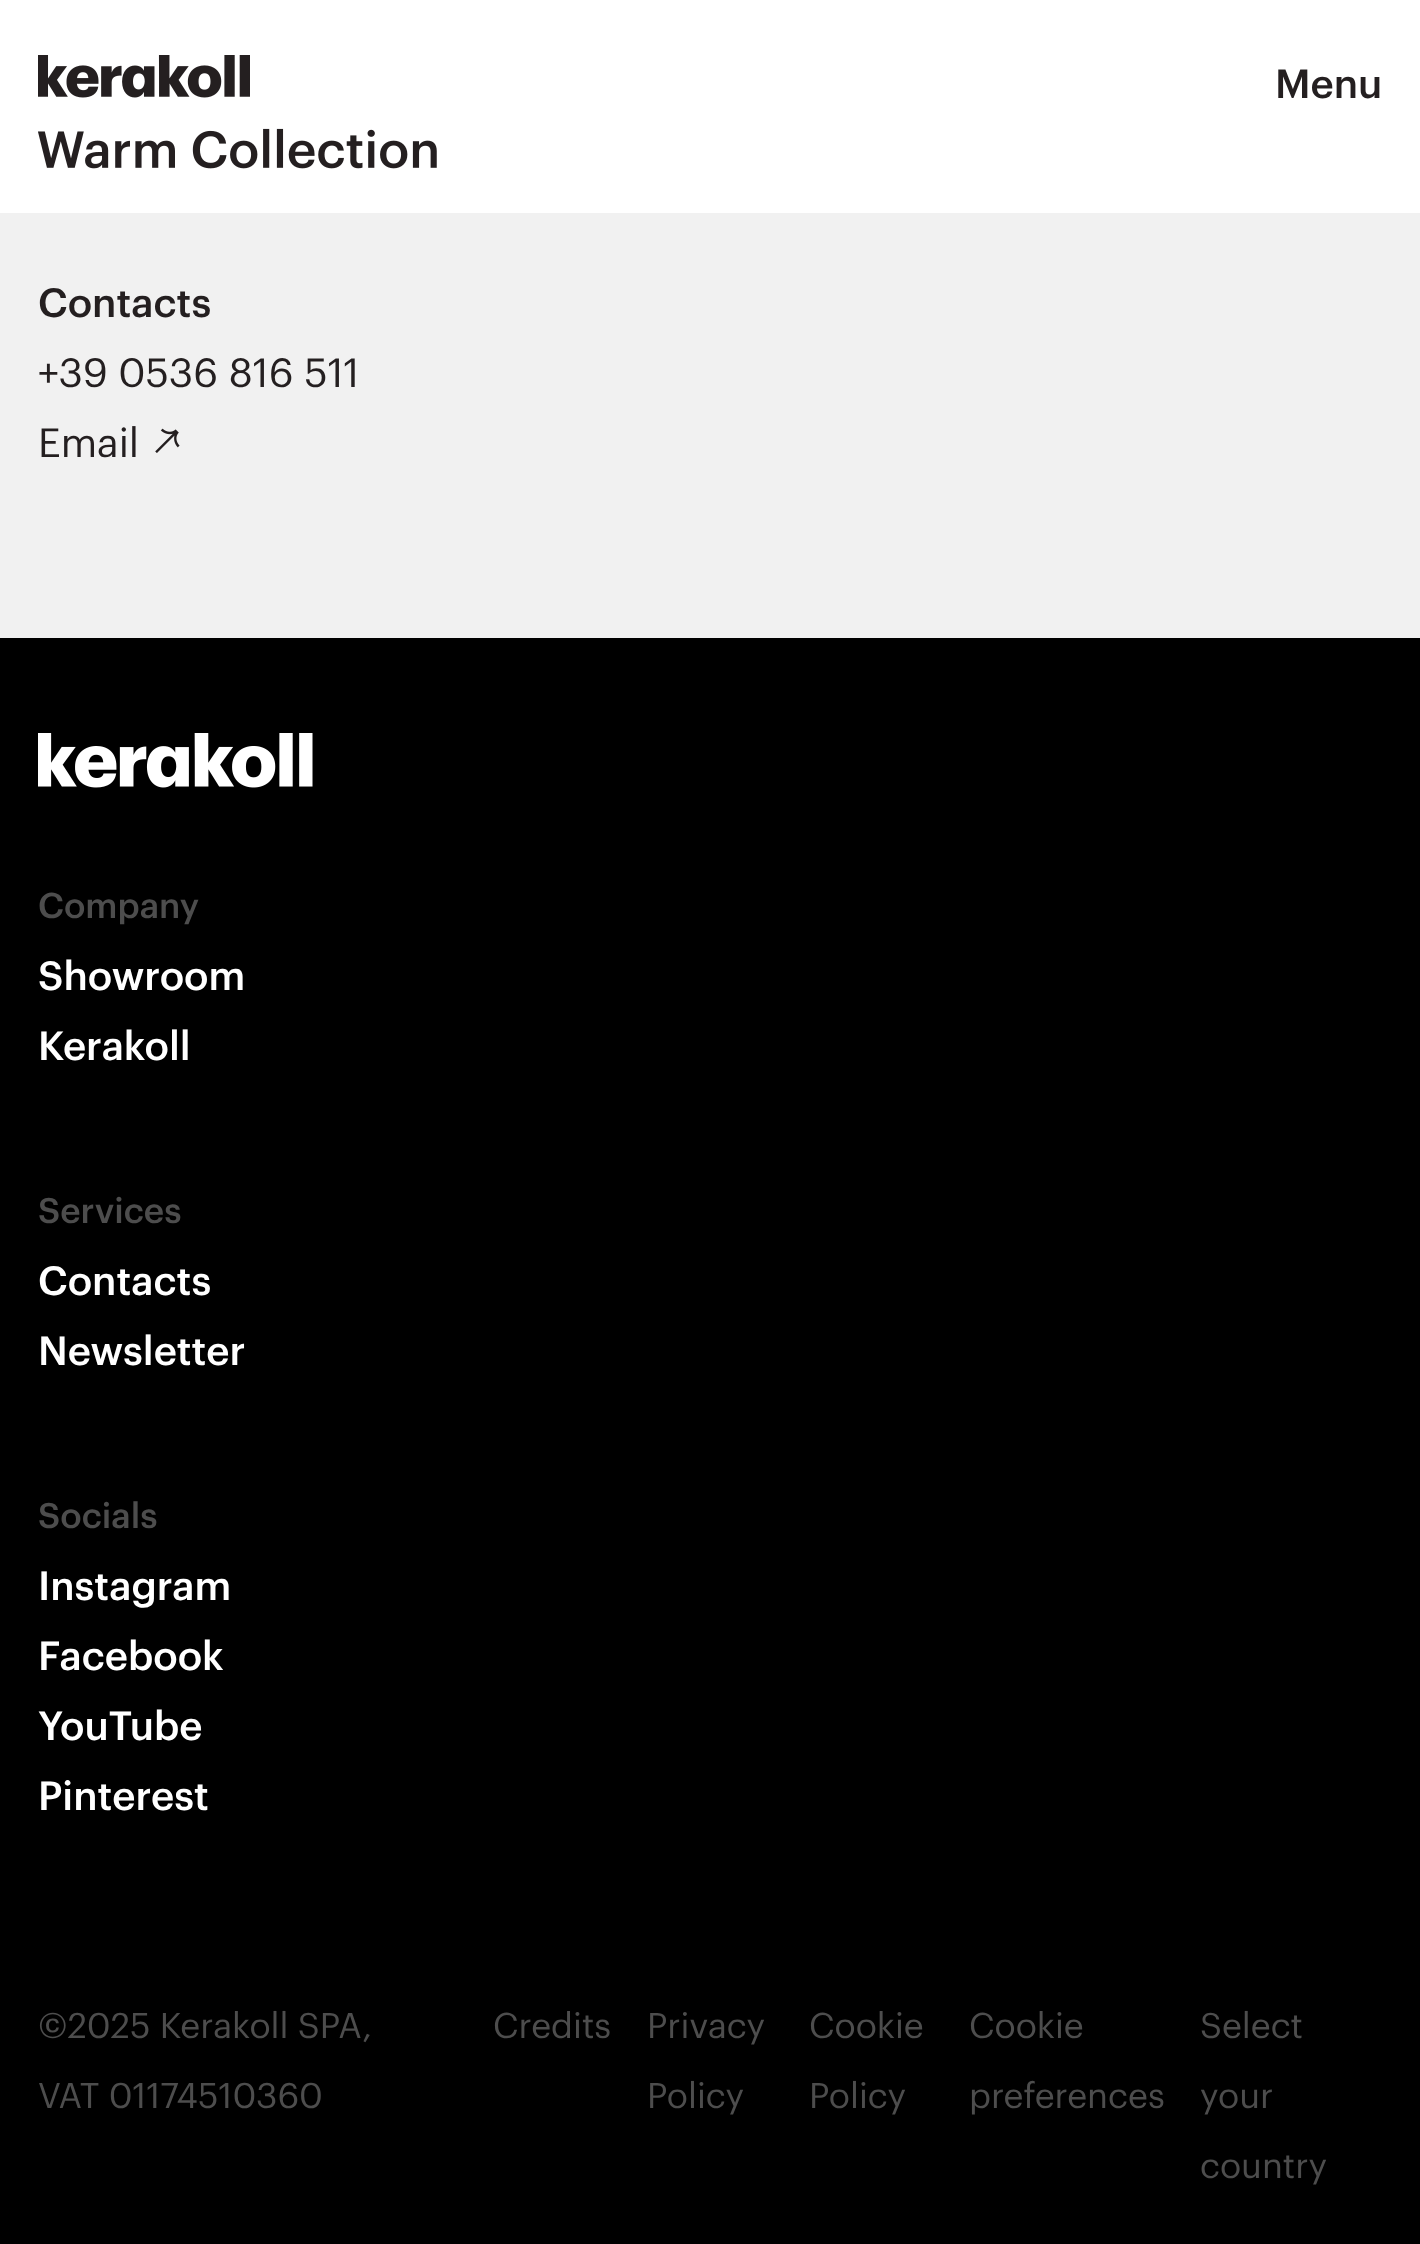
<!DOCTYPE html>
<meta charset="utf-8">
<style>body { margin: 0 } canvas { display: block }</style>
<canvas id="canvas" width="1420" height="2244"></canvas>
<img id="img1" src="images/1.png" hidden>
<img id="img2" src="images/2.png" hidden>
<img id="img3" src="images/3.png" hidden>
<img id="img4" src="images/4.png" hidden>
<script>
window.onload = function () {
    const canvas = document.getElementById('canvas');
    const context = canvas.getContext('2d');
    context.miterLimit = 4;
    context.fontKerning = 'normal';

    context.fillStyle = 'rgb(241, 241, 241)';
    context.fillRect(0, 0, 1420, 2244);
    context.fillStyle = 'rgb(255, 255, 255)';
    context.fillRect(0, 0, 1420, 213);
    context.drawImage(document.getElementById('img1'), 38, 55, 212, 43);
    context.drawImage(document.getElementById('img2'), 38, 128, 399, 41);
    context.drawImage(document.getElementById('img3'), 155, 428, 25, 25);
    context.fillStyle = 'rgb(0, 0, 0)';
    context.fillRect(0, 638, 1420, 1606);
    context.drawImage(document.getElementById('img4'), 38, 733, 275, 55);
    context.font = '500 40px Graphik';
    context.fillStyle = 'rgb(36, 31, 32)';
    context.fillText('Menu', 1275, 98);
    context.fillText('Contacts', 38, 317);
    context.font = '40px Graphik';
    context.fillText('+39 0536 816 511', 38, 387);
    context.fillText('Email', 38, 457);
    context.font = '500 35px Graphik';
    context.fillStyle = 'rgb(77, 77, 77)';
    context.fillText('Company', 38, 918);
    context.font = '500 40px Graphik';
    context.fillStyle = 'rgb(255, 255, 255)';
    context.fillText('Showroom', 38, 990);
    context.fillText('Kerakoll', 38, 1060);
    context.font = '500 35px Graphik';
    context.fillStyle = 'rgb(77, 77, 77)';
    context.fillText('Services', 38, 1223);
    context.font = '500 40px Graphik';
    context.fillStyle = 'rgb(255, 255, 255)';
    context.fillText('Contacts', 38, 1295);
    context.fillText('Newsletter', 38, 1365);
    context.font = '500 35px Graphik';
    context.fillStyle = 'rgb(77, 77, 77)';
    context.fillText('Socials', 38, 1528);
    context.font = '500 40px Graphik';
    context.fillStyle = 'rgb(255, 255, 255)';
    context.fillText('Instagram', 38, 1600);
    context.fillText('Facebook', 38, 1670);
    context.fillText('YouTube', 38, 1740);
    context.fillText('Pinterest', 38, 1810);
    context.font = '35px Graphik';
    context.fillStyle = 'rgb(77, 77, 77)';
    context.fillText('©2025 Kerakoll SPA,', 38, 2038);
    context.fillText('VAT 01174510360', 38, 2108);
    context.fillText('Credits', 493, 2038);
    context.fillText('Privacy', 647, 2038);
    context.fillText('Policy', 647, 2108);
    context.fillText('Cookie', 809, 2038);
    context.fillText('Policy', 809, 2108);
    context.fillText('Cookie', 969, 2038);
    context.fillText('preferences', 969, 2108);
    context.fillText('Select', 1200, 2038);
    context.fillText('your', 1200, 2108);
    context.fillText('country', 1200, 2178);
};
</script>
